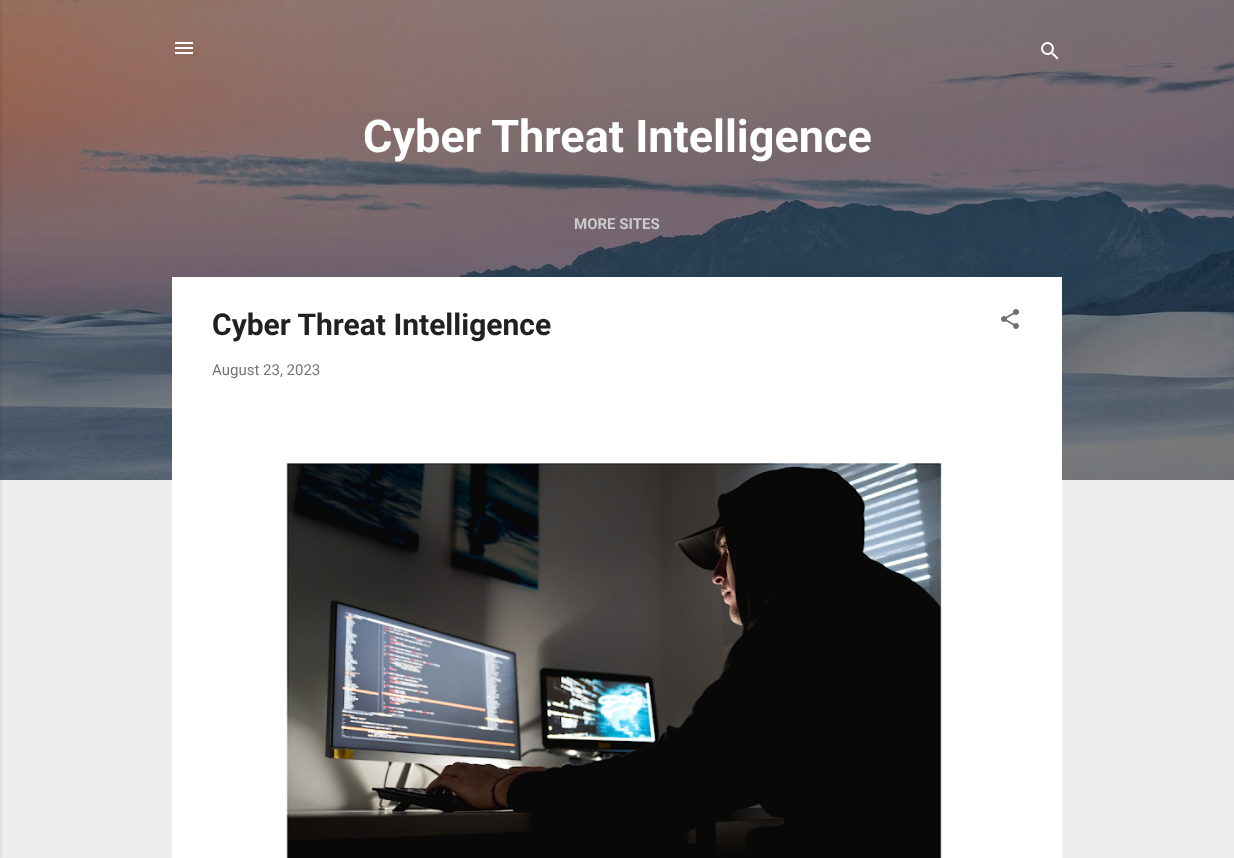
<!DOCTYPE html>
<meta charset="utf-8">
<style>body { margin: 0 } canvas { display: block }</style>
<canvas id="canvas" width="1234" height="858"></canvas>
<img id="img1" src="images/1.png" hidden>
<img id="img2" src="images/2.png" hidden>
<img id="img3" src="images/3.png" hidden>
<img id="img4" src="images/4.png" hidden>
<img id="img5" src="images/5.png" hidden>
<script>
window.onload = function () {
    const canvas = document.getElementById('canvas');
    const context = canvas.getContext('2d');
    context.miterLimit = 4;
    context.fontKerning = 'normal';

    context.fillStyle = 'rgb(238, 238, 238)';
    context.fillRect(0, 0, 1234, 858);
    context.drawImage(document.getElementById('img1'), 0, 0, 1234, 480);
    context.fillStyle = 'rgba(0, 0, 0, 0.1)';
    context.filter = 'blur(1.5px)';
    context.beginPath();
    context.rect(-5, 1, 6, 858);
    context.fill();
    context.filter = 'none';
    context.drawImage(document.getElementById('img2'), 175, 42, 18, 12);
    context.drawImage(document.getElementById('img3'), 1041, 42, 18, 18);
    context.fillStyle = 'rgb(255, 255, 255)';
    context.fillRect(172, 277, 890, 581);
    context.drawImage(document.getElementById('img4'), 1001, 309, 18, 20);
    context.drawImage(document.getElementById('img5'), 286, 463, 656, 395);
    context.font = 'bold 45px Roboto';
    context.fillText('Cyber Threat Intelligence', 363, 152);
    context.font = 'bold 15px Roboto';
    context.fillStyle = 'rgb(204, 204, 204)';
    context.fillText('MORE SITES', 574, 229);
    context.font = 'bold 30px Roboto';
    context.fillStyle = 'rgb(33, 33, 33)';
    context.fillText('Cyber Threat Intelligence', 212, 335);
    context.font = '15px Roboto';
    context.fillStyle = 'rgb(117, 117, 117)';
    context.fillText('August 23, 2023', 212, 375);
};
</script>
